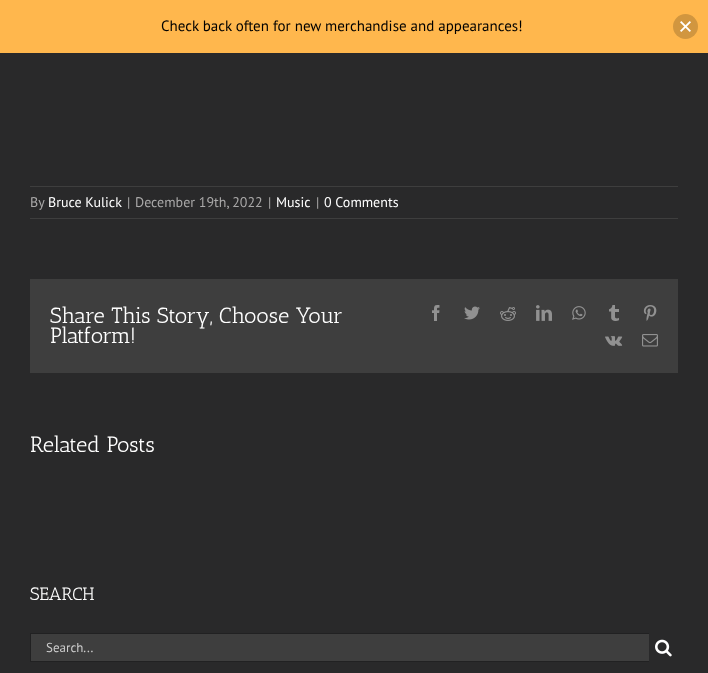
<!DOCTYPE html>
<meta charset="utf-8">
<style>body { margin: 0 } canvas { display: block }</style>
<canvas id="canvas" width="708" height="673"></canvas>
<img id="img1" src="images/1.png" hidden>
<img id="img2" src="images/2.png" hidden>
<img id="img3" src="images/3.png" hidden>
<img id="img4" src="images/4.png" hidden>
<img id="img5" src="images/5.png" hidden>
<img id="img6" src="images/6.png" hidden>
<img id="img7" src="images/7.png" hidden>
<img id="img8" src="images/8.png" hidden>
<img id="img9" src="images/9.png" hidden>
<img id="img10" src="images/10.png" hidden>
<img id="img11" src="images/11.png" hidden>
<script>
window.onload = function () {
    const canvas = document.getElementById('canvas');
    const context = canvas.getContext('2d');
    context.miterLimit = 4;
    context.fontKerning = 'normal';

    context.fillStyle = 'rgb(41, 41, 42)';
    context.fillRect(0, 0, 708, 673);
    context.fillStyle = 'rgb(255, 183, 77)';
    context.fillRect(0, 0, 708, 53);
    context.fillStyle = 'rgb(209, 150, 63)';
    context.beginPath();
    context.arc(685.5, 26.5, 12.5, 0, 2 * Math.PI);
    context.fill();
    context.drawImage(document.getElementById('img1'), 680, 21, 11, 11);
    context.fillStyle = 'rgb(62, 62, 62)';
    context.fillRect(30, 186, 648, 1);
    context.fillRect(30, 218, 648, 1);
    context.fillRect(30, 279, 648, 94);
    context.drawImage(document.getElementById('img2'), 432, 305, 8, 16);
    context.drawImage(document.getElementById('img3'), 464, 306, 16, 14);
    context.drawImage(document.getElementById('img4'), 500, 307, 16, 14);
    context.drawImage(document.getElementById('img5'), 536, 305, 16, 16);
    context.drawImage(document.getElementById('img6'), 572, 306, 14, 14);
    context.drawImage(document.getElementById('img7'), 609, 305, 10, 16);
    context.drawImage(document.getElementById('img8'), 643, 305, 14, 16);
    context.drawImage(document.getElementById('img9'), 605, 336, 18, 10);
    context.drawImage(document.getElementById('img10'), 642, 334, 16, 13);
    context.fillRect(31, 634, 618, 27);
    context.fillStyle = 'rgb(33, 33, 34)';
    context.fillRect(30, 633, 619, 1);
    context.fillRect(30, 661, 619, 1);
    context.fillRect(30, 633, 1, 29);
    context.drawImage(document.getElementById('img11'), 655, 639, 17, 18);
    context.font = '15px PT Sans';
    context.fillStyle = 'rgb(0, 0, 0)';
    context.fillText('Check back often for new merchandise and appearances!', 161, 31);
    context.font = '14px PT Sans';
    context.fillStyle = 'rgb(170, 169, 169)';
    context.fillText('By', 30, 207);
    context.fillStyle = 'rgb(255, 255, 255)';
    context.fillText('Bruce Kulick', 48, 207);
    context.fillStyle = 'rgb(170, 169, 169)';
    context.fillText('|', 127, 207);
    context.fillText('December 19th, 2022', 135, 207);
    context.fillText('|', 268, 207);
    context.fillStyle = 'rgb(255, 255, 255)';
    context.fillText('Music', 276, 207);
    context.fillStyle = 'rgb(170, 169, 169)';
    context.fillText('|', 316, 207);
    context.fillStyle = 'rgb(255, 255, 255)';
    context.fillText('0 Comments', 324, 207);
    context.font = '22px Antic Slab';
    context.fillText('Share This Story, Choose Your', 50, 323);
    context.fillText('Platform!', 50, 343);
    context.fillText('Related Posts', 30, 452);
    context.font = '18px Antic Slab';
    context.fillText('SEARCH', 30, 600);
    context.font = '13px PT Sans';
    context.fillStyle = 'rgb(204, 204, 204)';
    context.fillText('Search...', 46, 652);
};
</script>
